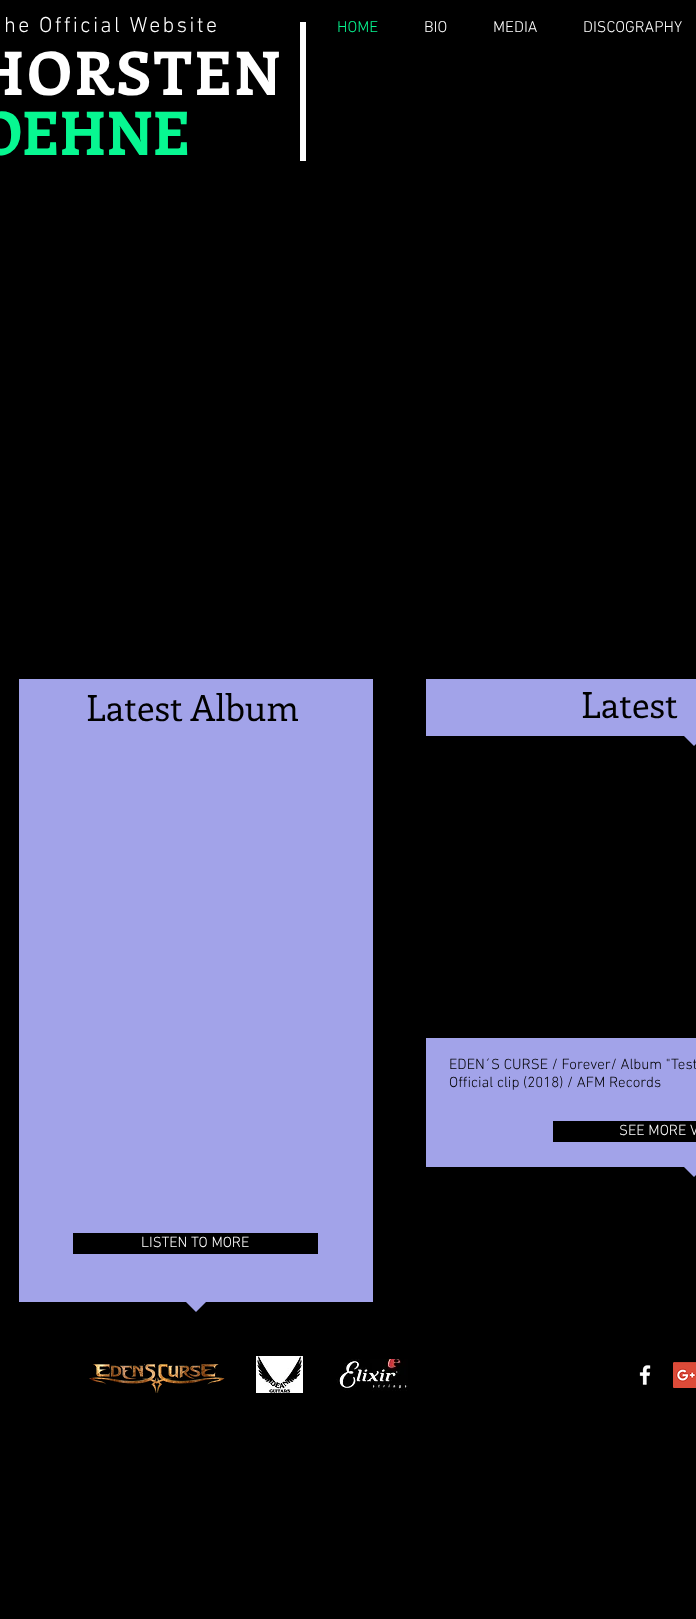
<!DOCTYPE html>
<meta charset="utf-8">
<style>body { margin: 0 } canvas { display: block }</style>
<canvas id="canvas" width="696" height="1619"></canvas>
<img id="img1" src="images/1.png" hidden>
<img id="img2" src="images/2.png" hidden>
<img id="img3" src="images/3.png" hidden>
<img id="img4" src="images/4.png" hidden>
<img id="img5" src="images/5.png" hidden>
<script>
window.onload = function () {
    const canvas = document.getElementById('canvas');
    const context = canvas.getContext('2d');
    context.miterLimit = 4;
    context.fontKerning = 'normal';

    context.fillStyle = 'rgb(0, 0, 0)';
    context.fillRect(0, 0, 696, 1619);
    context.fillStyle = 'rgb(255, 255, 255)';
    context.fillRect(300, 22, 6, 139);
    context.fillStyle = 'rgb(162, 163, 233)';
    context.fillRect(19, 679, 354, 623);
    context.fillStyle = 'rgb(0, 0, 0)';
    context.fillRect(73, 1233, 245, 21);
    context.fillStyle = 'rgb(162, 163, 233)';
    context.beginPath();
    context.moveTo(186, 1302);
    context.lineTo(206, 1302);
    context.lineTo(196, 1312);
    context.closePath();
    context.fill();
    context.fillRect(426, 679, 270, 57);
    context.beginPath();
    context.moveTo(684, 736);
    context.lineTo(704, 736);
    context.lineTo(694, 746);
    context.closePath();
    context.fill();
    context.fillRect(426, 1038, 270, 129);
    context.fillStyle = 'rgb(0, 0, 0)';
    context.fillRect(553, 1121, 143, 21);
    context.fillStyle = 'rgb(162, 163, 233)';
    context.beginPath();
    context.moveTo(684, 1167);
    context.lineTo(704, 1167);
    context.lineTo(694, 1177);
    context.closePath();
    context.fill();
    context.drawImage(document.getElementById('img1'), 89, 1364, 136, 29);
    context.drawImage(document.getElementById('img2'), 256, 1356, 47, 37);
    context.drawImage(document.getElementById('img3'), 336, 1359, 72, 32);
    context.drawImage(document.getElementById('img4'), 639, 1365, 12, 20);
    context.drawImage(document.getElementById('img5'), 673, 1362, 23, 26);
    context.letterSpacing = '2.25px';
    context.font = '300 22px "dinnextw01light"';
    context.fillStyle = 'rgb(255, 255, 255)';
    context.fillText('he Official Website', 4, 32);
    context.letterSpacing = '0px';
    context.font = '300 16px "dinnextw01light"';
    context.fillStyle = 'rgb(7, 247, 145)';
    context.fillText('HOME', 337, 32);
    context.fillStyle = 'rgb(255, 255, 255)';
    context.fillText('BIO', 424, 32);
    context.fillText('MEDIA', 493, 32);
    context.fillText('DISCOGRAPHY', 583, 32);
    context.letterSpacing = '3px';
    context.font = 'bold 60px Enriqueta';
    context.fillText('HORSTEN', -23, 95);
    context.letterSpacing = '0px';
    context.fillStyle = 'rgb(7, 247, 145)';
    context.fillText('OEHNE', -22, 155);
    context.font = '36px Enriqueta';
    context.fillStyle = 'rgb(0, 0, 0)';
    context.fillText('Latest Album', 86, 721);
    context.font = '300 15px "dinnextw01light"';
    context.fillStyle = 'rgb(255, 255, 255)';
    context.fillText('LISTEN TO MORE', 141, 1247);
    context.font = '36px Enriqueta';
    context.fillStyle = 'rgb(0, 0, 0)';
    context.fillText('Latest', 581, 718);
    context.font = '300 15px "dinnextw01light"';
    context.fillText('EDEN´S CURSE / Forever/ Album "Test', 449, 1069);
    context.fillText('Official clip (2018) / AFM Records', 449, 1087);
    context.fillStyle = 'rgb(255, 255, 255)';
    context.fillText('SEE MORE V', 619, 1135);
};
</script>
